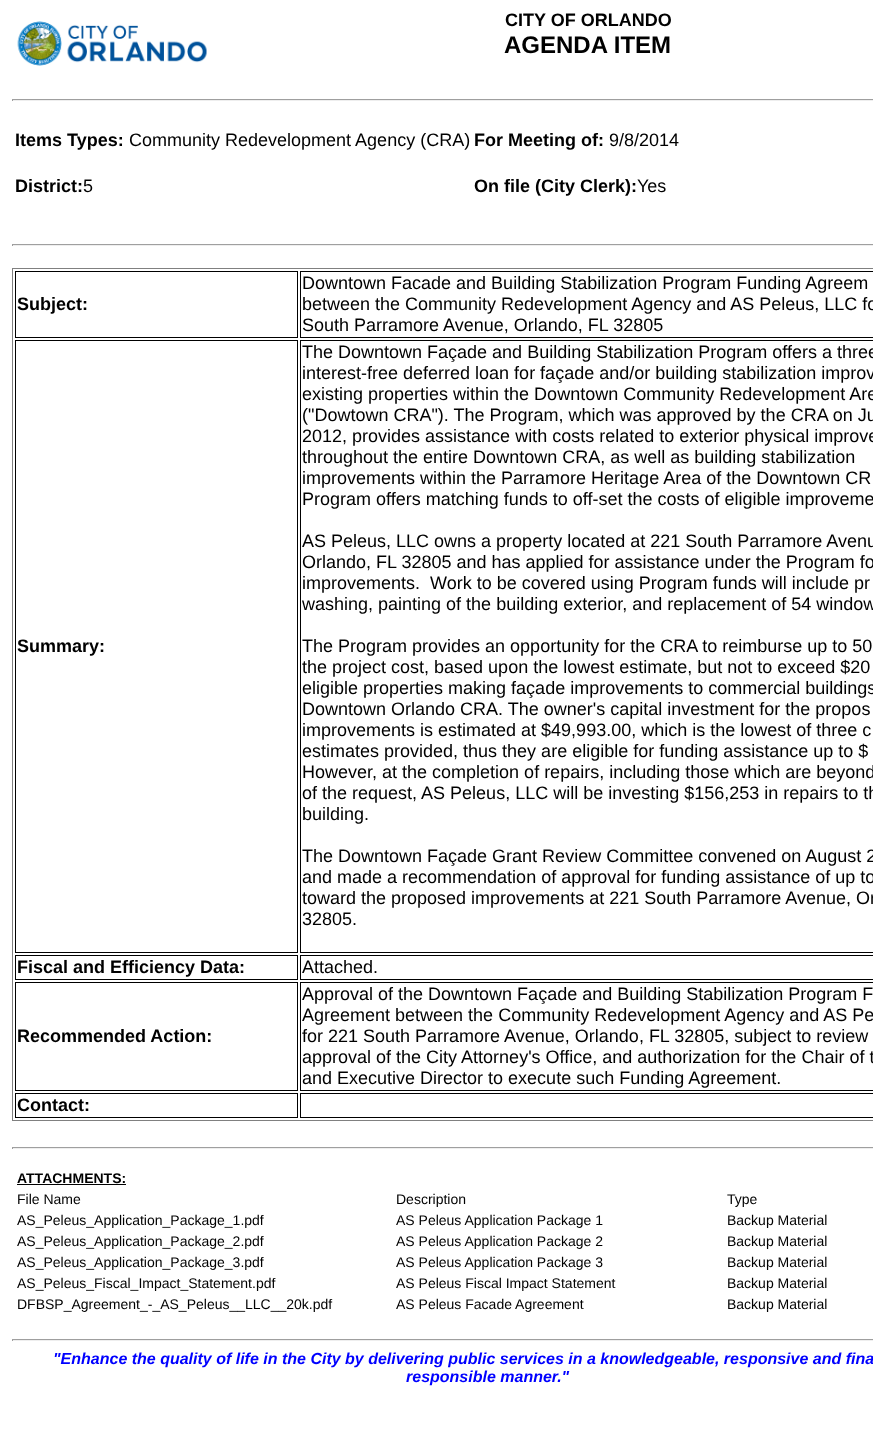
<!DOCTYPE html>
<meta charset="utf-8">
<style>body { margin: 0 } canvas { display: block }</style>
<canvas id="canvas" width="873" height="1429"></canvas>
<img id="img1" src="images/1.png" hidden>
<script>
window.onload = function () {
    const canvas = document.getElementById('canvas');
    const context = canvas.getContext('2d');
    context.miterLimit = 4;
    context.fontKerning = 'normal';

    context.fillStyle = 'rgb(255, 255, 255)';
    context.fillRect(0, 0, 873, 1429);
    context.drawImage(document.getElementById('img1'), 17, 21, 190, 45);
    context.fillStyle = 'rgb(159, 159, 159)';
    context.fillRect(12, 99, 861, 1);
    context.fillStyle = 'rgb(238, 238, 238)';
    context.fillRect(12, 100, 861, 1);
    context.fillStyle = 'rgb(159, 159, 159)';
    context.fillRect(12, 99, 1, 2);
    context.fillRect(12, 244, 861, 1);
    context.fillStyle = 'rgb(238, 238, 238)';
    context.fillRect(12, 245, 861, 1);
    context.fillStyle = 'rgb(159, 159, 159)';
    context.fillRect(12, 244, 1, 2);
    context.strokeStyle = 'rgb(128, 128, 128)';
    context.strokeRect(12.5, 268.5, 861, 852);
    context.strokeStyle = 'rgb(0, 0, 0)';
    context.strokeRect(15.5, 271.5, 282, 66);
    context.strokeRect(300.5, 271.5, 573, 66);
    context.strokeRect(15.5, 340.5, 282, 612);
    context.strokeRect(300.5, 340.5, 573, 612);
    context.strokeRect(15.5, 955.5, 282, 24);
    context.strokeRect(300.5, 955.5, 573, 24);
    context.strokeRect(15.5, 982.5, 282, 108);
    context.strokeRect(300.5, 982.5, 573, 108);
    context.strokeRect(15.5, 1093.5, 282, 24);
    context.strokeRect(300.5, 1093.5, 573, 24);
    context.fillRect(12, 1147, 861, 1);
    context.fillStyle = 'rgb(238, 238, 238)';
    context.fillRect(12, 1148, 861, 1);
    context.fillStyle = 'rgb(159, 159, 159)';
    context.fillRect(12, 1147, 1, 2);
    context.fillStyle = 'rgb(0, 0, 0)';
    context.fillRect(17, 1184, 109, 1);
    context.fillStyle = 'rgb(159, 159, 159)';
    context.fillRect(12, 1339, 861, 1);
    context.fillStyle = 'rgb(238, 238, 238)';
    context.fillRect(12, 1340, 861, 1);
    context.fillStyle = 'rgb(159, 159, 159)';
    context.fillRect(12, 1339, 1, 2);
    context.font = 'bold 18px Liberation Sans';
    context.fillStyle = 'rgb(0, 0, 0)';
    context.fillText('CITY OF ORLANDO', 505, 26);
    context.font = 'bold 24px Liberation Sans';
    context.fillText('AGENDA ITEM', 504, 53);
    context.font = 'bold 18px Liberation Sans';
    context.fillText('Items Types:', 15, 146);
    context.font = '18px Liberation Sans';
    context.fillText('Community Redevelopment Agency (CRA)', 129, 146);
    context.font = 'bold 18px Liberation Sans';
    context.fillText('For Meeting of:', 474, 146);
    context.font = '18px Liberation Sans';
    context.fillText('9/8/2014', 609, 146);
    context.font = 'bold 18px Liberation Sans';
    context.fillText('District:', 15, 192);
    context.font = '18px Liberation Sans';
    context.fillText('5', 83, 192);
    context.font = 'bold 18px Liberation Sans';
    context.fillText('On file (City Clerk):', 474, 192);
    context.font = '18px Liberation Sans';
    context.fillText('Yes', 637, 192);
    context.font = 'bold 18px Liberation Sans';
    context.fillText('Subject:', 17, 310);
    context.font = '18px Liberation Sans';
    context.fillText('Downtown Facade and Building Stabilization Program Funding Agreem', 302, 289);
    context.fillText('between the Community Redevelopment Agency and AS Peleus, LLC fo', 302, 310);
    context.fillText('South Parramore Avenue, Orlando, FL 32805', 302, 331);
    context.font = 'bold 18px Liberation Sans';
    context.fillText('Summary:', 17, 652);
    context.font = '18px Liberation Sans';
    context.fillText('The Downtown Façade and Building Stabilization Program offers a three', 302, 358);
    context.fillText('interest-free deferred loan for façade and/or building stabilization improv', 302, 379);
    context.fillText('existing properties within the Downtown Community Redevelopment Are', 302, 400);
    context.fillText('("Dowtown CRA"). The Program, which was approved by the CRA on Ju', 302, 421);
    context.fillText('2012, provides assistance with costs related to exterior physical improve', 302, 442);
    context.fillText('throughout the entire Downtown CRA, as well as building stabilization', 302, 463);
    context.fillText('improvements within the Parramore Heritage Area of the Downtown CR', 302, 484);
    context.fillText('Program offers matching funds to off-set the costs of eligible improveme', 302, 505);
    context.fillText('AS Peleus, LLC owns a property located at 221 South Parramore Avenu', 302, 547);
    context.fillText('Orlando, FL 32805 and has applied for assistance under the Program fo', 302, 568);
    context.fillText('improvements.  Work to be covered using Program funds will include pr', 302, 589);
    context.fillText('washing, painting of the building exterior, and replacement of 54 window', 302, 610);
    context.fillText('The Program provides an opportunity for the CRA to reimburse up to 50', 302, 652);
    context.fillText('the project cost, based upon the lowest estimate, but not to exceed $20', 302, 673);
    context.fillText('eligible properties making façade improvements to commercial buildings', 302, 694);
    context.fillText('Downtown Orlando CRA. The owner\'s capital investment for the propos', 302, 715);
    context.fillText('improvements is estimated at $49,993.00, which is the lowest of three c', 302, 736);
    context.fillText('estimates provided, thus they are eligible for funding assistance up to $', 302, 757);
    context.fillText('However, at the completion of repairs, including those which are beyond', 302, 778);
    context.fillText('of the request, AS Peleus, LLC will be investing $156,253 in repairs to th', 302, 799);
    context.fillText('building.', 302, 820);
    context.fillText('The Downtown Façade Grant Review Committee convened on August 2', 302, 862);
    context.fillText('and made a recommendation of approval for funding assistance of up to', 302, 883);
    context.fillText('toward the proposed improvements at 221 South Parramore Avenue, Or', 302, 904);
    context.fillText('32805.', 302, 925);
    context.font = 'bold 18px Liberation Sans';
    context.fillText('Fiscal and Efficiency Data:', 17, 973);
    context.font = '18px Liberation Sans';
    context.fillText('Attached.', 302, 973);
    context.font = 'bold 18px Liberation Sans';
    context.fillText('Recommended Action:', 17, 1042);
    context.font = '18px Liberation Sans';
    context.fillText('Approval of the Downtown Façade and Building Stabilization Program F', 302, 1000);
    context.fillText('Agreement between the Community Redevelopment Agency and AS Pe', 302, 1021);
    context.fillText('for 221 South Parramore Avenue, Orlando, FL 32805, subject to review', 302, 1042);
    context.fillText('approval of the City Attorney\'s Office, and authorization for the Chair of t', 302, 1063);
    context.fillText('and Executive Director to execute such Funding Agreement.', 302, 1084);
    context.font = 'bold 18px Liberation Sans';
    context.fillText('Contact:', 17, 1111);
    context.font = 'bold 14px Liberation Sans';
    context.fillText('ATTACHMENTS:', 17, 1183);
    context.font = '14px Liberation Sans';
    context.fillText('File Name', 17, 1204);
    context.fillText('Description', 396, 1204);
    context.fillText('Type', 727, 1204);
    context.fillText('AS_Peleus_Application_Package_1.pdf', 17, 1225);
    context.fillText('AS Peleus Application Package 1', 396, 1225);
    context.fillText('Backup Material', 727, 1225);
    context.fillText('AS_Peleus_Application_Package_2.pdf', 17, 1246);
    context.fillText('AS Peleus Application Package 2', 396, 1246);
    context.fillText('Backup Material', 727, 1246);
    context.fillText('AS_Peleus_Application_Package_3.pdf', 17, 1267);
    context.fillText('AS Peleus Application Package 3', 396, 1267);
    context.fillText('Backup Material', 727, 1267);
    context.fillText('AS_Peleus_Fiscal_Impact_Statement.pdf', 17, 1288);
    context.fillText('AS Peleus Fiscal Impact Statement', 396, 1288);
    context.fillText('Backup Material', 727, 1288);
    context.fillText('DFBSP_Agreement_-_AS_Peleus__LLC__20k.pdf', 17, 1309);
    context.fillText('AS Peleus Facade Agreement', 396, 1309);
    context.fillText('Backup Material', 727, 1309);
    context.font = 'italic bold 16px Liberation Sans';
    context.fillStyle = 'rgb(0, 0, 255)';
    context.fillText('"Enhance the quality of life in the City by delivering public services in a knowledgeable, responsive and fina', 53, 1364);
    context.fillText('responsible manner."', 406, 1382);
};
</script>
